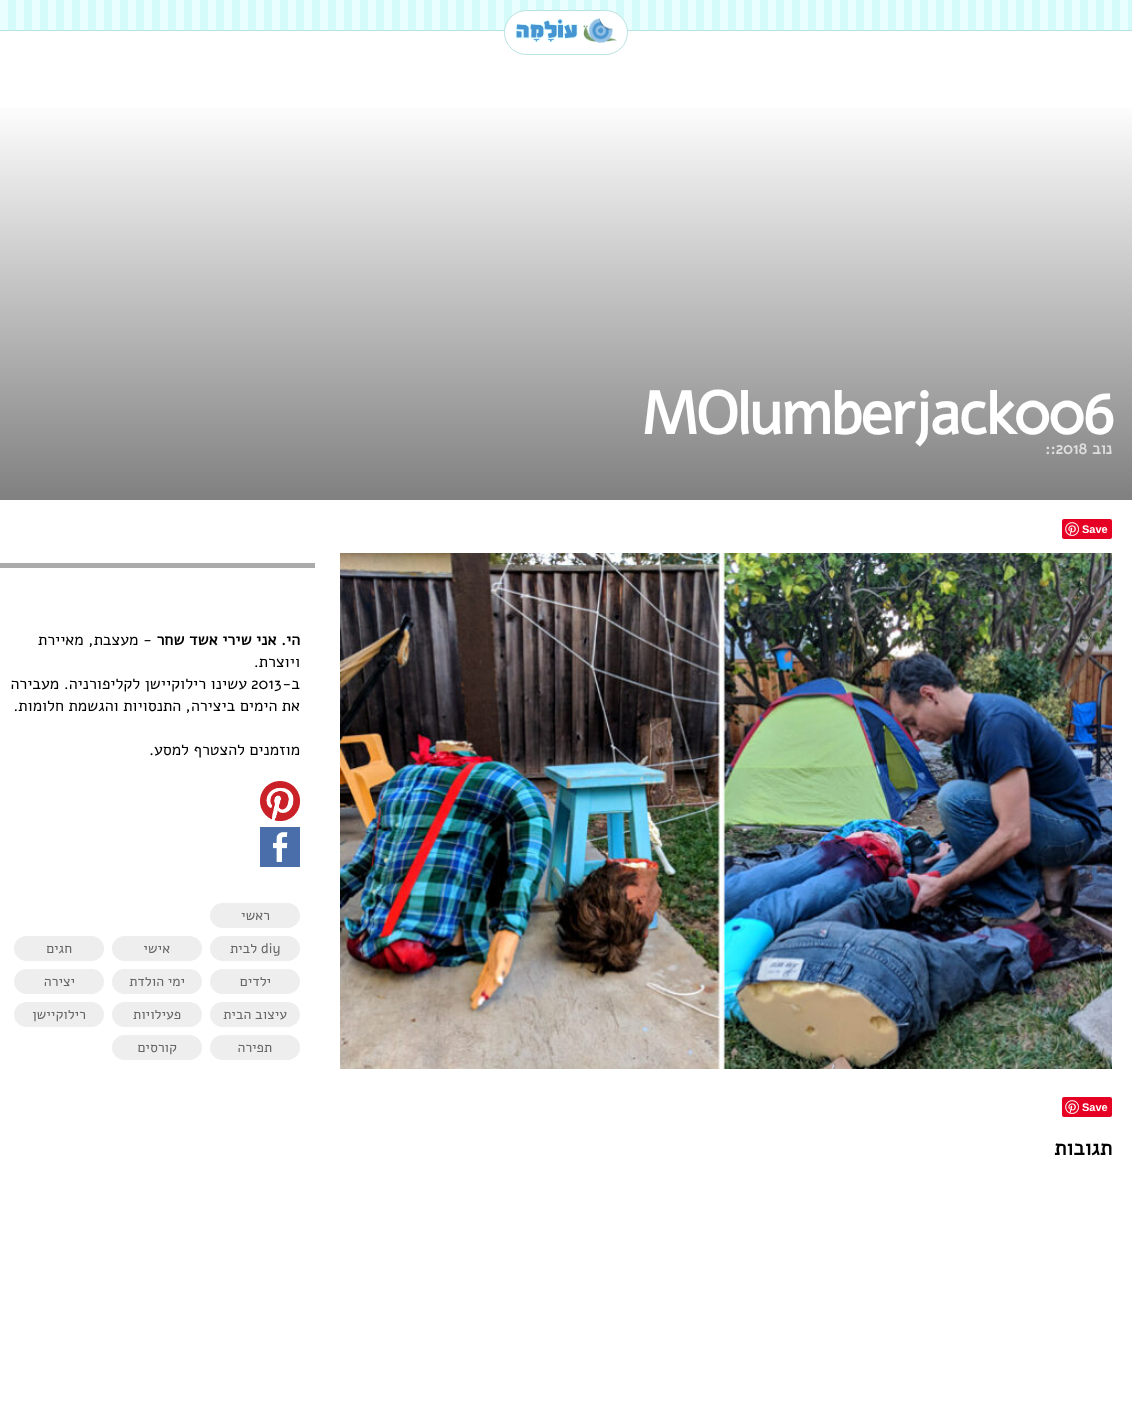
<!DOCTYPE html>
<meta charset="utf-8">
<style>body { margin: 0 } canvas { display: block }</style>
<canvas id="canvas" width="1132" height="1417"></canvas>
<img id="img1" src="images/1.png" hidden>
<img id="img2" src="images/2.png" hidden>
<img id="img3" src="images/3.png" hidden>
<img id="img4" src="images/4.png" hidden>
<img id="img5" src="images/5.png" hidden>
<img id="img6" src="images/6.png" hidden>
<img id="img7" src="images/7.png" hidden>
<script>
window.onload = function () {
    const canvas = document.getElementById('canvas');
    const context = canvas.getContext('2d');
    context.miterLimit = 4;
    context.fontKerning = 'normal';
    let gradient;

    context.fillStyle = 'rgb(255, 255, 255)';
    context.fillRect(0, 0, 1132, 1417);
    context.drawImage(document.getElementById('img1'), 0, 0, 1132, 30);
    context.fillStyle = 'rgb(185, 227, 226)';
    context.fillRect(0, 30, 1132, 1);
    context.fillStyle = 'rgb(255, 255, 255)';
    context.beginPath();
    context.roundRect(504.5, 10.5, 123, 44, 22);
    context.fill();
    context.strokeStyle = 'rgb(185, 227, 226)';
    context.stroke();
    context.drawImage(document.getElementById('img2'), 583, 18, 34, 25);
    context.drawImage(document.getElementById('img3'), 515, 18, 63, 25);
    gradient = context.createLinearGradient(566, 0, 566, 500);
    gradient.addColorStop(0, 'rgb(255, 255, 255)');
    gradient.addColorStop(0.2, 'rgb(255, 255, 255)');
    gradient.addColorStop(1, 'rgb(128, 128, 128)');
    context.fillStyle = gradient;
    context.fillRect(0, 108, 1132, 392);
    context.fillStyle = 'rgb(230, 0, 35)';
    context.beginPath();
    context.roundRect(1062, 519, 50, 20, 2);
    context.fill();
    context.drawImage(document.getElementById('img4'), 1065, 522, 14, 14);
    context.drawImage(document.getElementById('img5'), 340, 553, 772, 516);
    context.beginPath();
    context.roundRect(1062, 1097, 50, 20, 2);
    context.fill();
    context.drawImage(document.getElementById('img4'), 1065, 1100, 14, 14);
    context.fillStyle = 'rgb(170, 170, 170)';
    context.fillRect(0, 563, 315, 5);
    context.drawImage(document.getElementById('img6'), 260, 781, 40, 40);
    context.drawImage(document.getElementById('img7'), 260, 827, 40, 40);
    context.fillStyle = 'rgb(238, 238, 238)';
    context.beginPath();
    context.roundRect(210, 903, 90, 25, 12.5);
    context.fill();
    context.beginPath();
    context.roundRect(210, 936, 90, 25, 12.5);
    context.fill();
    context.beginPath();
    context.roundRect(112, 936, 90, 25, 12.5);
    context.fill();
    context.beginPath();
    context.roundRect(14, 936, 90, 25, 12.5);
    context.fill();
    context.beginPath();
    context.roundRect(210, 969, 90, 25, 12.5);
    context.fill();
    context.beginPath();
    context.roundRect(112, 969, 90, 25, 12.5);
    context.fill();
    context.beginPath();
    context.roundRect(14, 969, 90, 25, 12.5);
    context.fill();
    context.beginPath();
    context.roundRect(210, 1002, 90, 25, 12.5);
    context.fill();
    context.beginPath();
    context.roundRect(112, 1002, 90, 25, 12.5);
    context.fill();
    context.beginPath();
    context.roundRect(14, 1002, 90, 25, 12.5);
    context.fill();
    context.beginPath();
    context.roundRect(210, 1035, 90, 25, 12.5);
    context.fill();
    context.beginPath();
    context.roundRect(112, 1035, 90, 25, 12.5);
    context.fill();
    context.letterSpacing = '-2px';
    context.font = 'bold 60px Alef';
    context.fillStyle = 'rgb(255, 255, 255)';
    context.fillText('MOlumberjack006', 642, 434);
    context.letterSpacing = '0px';
    context.direction = 'rtl';
    context.font = 'bold 16px Alef';
    context.fillStyle = 'rgb(222, 222, 222)';
    context.fillText('נוב', 1112, 454);
    context.direction = 'ltr';
    context.fillText('::2018', 1045, 454);
    context.font = 'bold 11px Liberation Sans';
    context.fillStyle = 'rgb(255, 255, 255)';
    context.fillText('Save', 1082, 533);
    context.fillText('Save', 1082, 1111);
    context.direction = 'rtl';
    context.font = 'bold 21px Alef';
    context.fillStyle = 'rgb(0, 0, 0)';
    context.fillText('תגובות', 1112, 1155);
    context.font = 'bold 16px Alef';
    context.fillText('הי. אני שירי אשד שחר', 300, 645);
    context.font = '16px Alef';
    context.fillText('- מעצבת, מאיירת', 152, 645);
    context.fillText('ויוצרת.', 300, 667);
    context.fillText('ב-', 300, 689);
    context.direction = 'ltr';
    context.fillText('2013', 251, 689);
    context.direction = 'rtl';
    context.fillText('עשינו רילוקיישן לקליפורניה. מעבירה', 247, 689);
    context.fillText('את הימים ביצירה, התנסויות והגשמת חלומות.', 300, 711);
    context.fillText('מוזמנים להצטרף למסע.', 300, 755);
    context.font = '14px Alef';
    context.fillStyle = 'rgb(102, 102, 102)';
    context.fillText('ראשי', 270, 920);
    context.direction = 'ltr';
    context.fillText('diy', 261, 953);
    context.direction = 'rtl';
    context.fillText('לבית', 257, 953);
    context.fillText('אישי', 170, 953);
    context.fillText('חגים', 72, 953);
    context.fillText('ילדים', 271, 986);
    context.fillText('ימי הולדת', 185, 986);
    context.fillText('יצירה', 75, 986);
    context.fillText('עיצוב הבית', 287, 1019);
    context.fillText('פעילויות', 181, 1019);
    context.fillText('רילוקיישן', 86, 1019);
    context.fillText('תפירה', 272, 1052);
    context.fillText('קורסים', 177, 1052);
};
</script>
